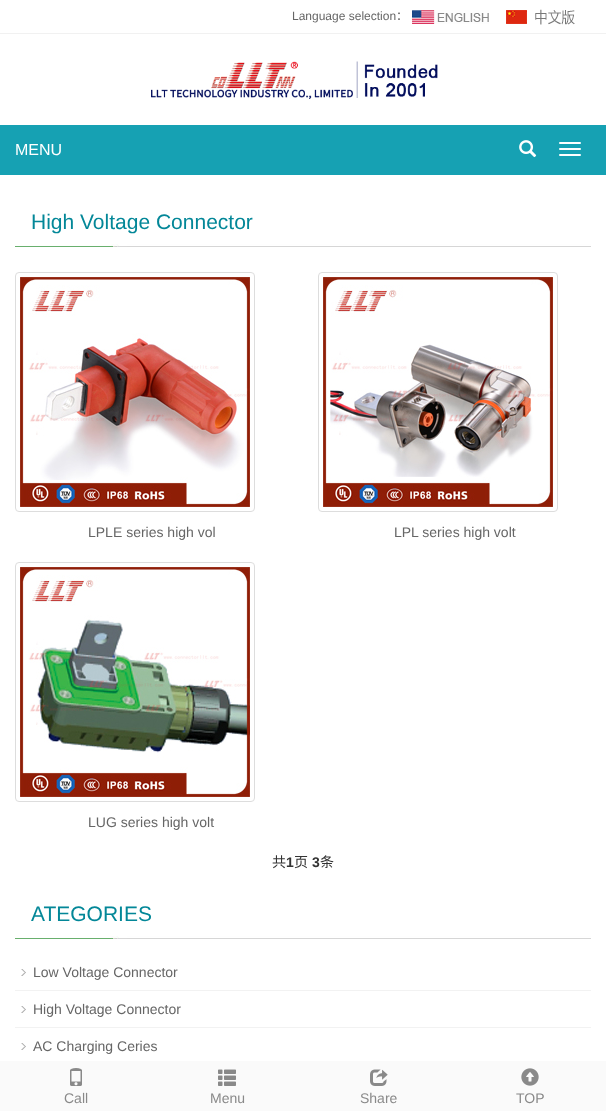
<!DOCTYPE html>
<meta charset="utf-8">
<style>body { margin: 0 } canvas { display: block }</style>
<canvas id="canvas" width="606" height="1111"></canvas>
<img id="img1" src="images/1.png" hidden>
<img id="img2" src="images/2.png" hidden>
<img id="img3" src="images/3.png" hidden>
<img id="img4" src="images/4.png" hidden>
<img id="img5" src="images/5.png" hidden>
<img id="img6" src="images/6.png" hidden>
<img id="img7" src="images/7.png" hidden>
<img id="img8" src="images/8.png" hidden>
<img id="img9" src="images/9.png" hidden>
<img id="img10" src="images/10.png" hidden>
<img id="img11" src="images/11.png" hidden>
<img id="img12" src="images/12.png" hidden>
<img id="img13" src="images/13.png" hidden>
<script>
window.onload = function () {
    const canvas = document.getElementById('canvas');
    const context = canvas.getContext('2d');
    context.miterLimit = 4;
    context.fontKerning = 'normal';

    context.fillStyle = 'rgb(255, 255, 255)';
    context.fillRect(0, 0, 606, 1111);
    context.fillStyle = 'rgb(241, 241, 241)';
    context.fillRect(0, 33, 606, 1);
    context.drawImage(document.getElementById('img1'), 412, 10, 77, 14);
    context.drawImage(document.getElementById('img2'), 506, 9, 69, 16);
    context.drawImage(document.getElementById('img3'), 151, 61, 287, 38);
    context.fillStyle = 'rgb(22, 161, 179)';
    context.fillRect(0, 125, 606, 50);
    context.drawImage(document.getElementById('img4'), 519, 140, 18, 18);
    context.fillStyle = 'rgb(255, 255, 255)';
    context.beginPath();
    context.roundRect(559, 142, 22, 2, 1);
    context.fill();
    context.beginPath();
    context.roundRect(559, 148, 22, 2, 1);
    context.fill();
    context.beginPath();
    context.roundRect(559, 154, 22, 2, 1);
    context.fill();
    context.drawImage(document.getElementById('img5'), 15, 244, 576, 3);
    context.beginPath();
    context.roundRect(15.5, 272.5, 239, 239, 3.5);
    context.strokeStyle = 'rgb(221, 221, 221)';
    context.stroke();
    context.drawImage(document.getElementById('img6'), 20, 277, 230, 230);
    context.beginPath();
    context.roundRect(318.5, 272.5, 239, 239, 3.5);
    context.stroke();
    context.drawImage(document.getElementById('img7'), 323, 277, 230, 230);
    context.beginPath();
    context.roundRect(15.5, 562.5, 239, 239, 3.5);
    context.stroke();
    context.drawImage(document.getElementById('img8'), 20, 567, 230, 230);
    context.drawImage(document.getElementById('img5'), 15, 936, 576, 3);
    context.drawImage(document.getElementById('img9'), 21, 969, 5, 7);
    context.fillStyle = 'rgb(242, 242, 242)';
    context.fillRect(15, 990, 576, 1);
    context.drawImage(document.getElementById('img9'), 21, 1006, 5, 7);
    context.fillRect(15, 1027, 576, 1);
    context.drawImage(document.getElementById('img9'), 21, 1043, 5, 7);
    context.fillStyle = 'rgb(250, 250, 250)';
    context.fillRect(0, 1061, 606, 50);
    context.drawImage(document.getElementById('img10'), 70, 1068, 12, 18);
    context.drawImage(document.getElementById('img11'), 218, 1069, 18, 17);
    context.drawImage(document.getElementById('img12'), 370, 1069, 18, 17);
    context.drawImage(document.getElementById('img13'), 521, 1068, 18, 18);
    context.font = '12px Liberation Sans';
    context.fillStyle = 'rgb(102, 102, 102)';
    context.fillText('Language selection', 292, 20);
    context.font = '12px Noto Sans CJK SC';
    context.fillText('：', 396, 20);
    context.font = '16px Liberation Sans';
    context.fillStyle = 'rgb(255, 255, 255)';
    context.fillText('MENU', 15, 155);
    context.font = '21px Liberation Sans';
    context.fillStyle = 'rgb(3, 135, 152)';
    context.fillText('High Voltage Connector', 31, 229);
    context.font = '14px Liberation Sans';
    context.fillStyle = 'rgb(102, 102, 102)';
    context.fillText('LPLE series high vol', 88, 537);
    context.fillText('LPL series high volt', 394, 537);
    context.fillText('LUG series high volt', 88, 827);
    context.font = '14px Noto Sans CJK SC';
    context.fillStyle = 'rgb(51, 51, 51)';
    context.fillText('共', 272, 867);
    context.font = 'bold 14px Liberation Sans';
    context.fillText('1', 286, 867);
    context.font = '14px Noto Sans CJK SC';
    context.fillText('页', 294, 867);
    context.font = 'bold 14px Liberation Sans';
    context.fillText('3', 312, 867);
    context.font = '14px Noto Sans CJK SC';
    context.fillText('条', 320, 867);
    context.font = '21px Liberation Sans';
    context.fillStyle = 'rgb(3, 135, 152)';
    context.fillText('ATEGORIES', 31, 921);
    context.font = '14px Liberation Sans';
    context.fillStyle = 'rgb(102, 102, 102)';
    context.fillText('Low Voltage Connector', 33, 977);
    context.fillText('High Voltage Connector', 33, 1014);
    context.fillText('AC Charging Ceries', 33, 1051);
    context.fillStyle = 'rgb(137, 137, 137)';
    context.fillText('Call', 64, 1103);
    context.fillText('Menu', 210, 1103);
    context.fillText('Share', 360, 1103);
    context.fillText('TOP', 516, 1103);
};
</script>
